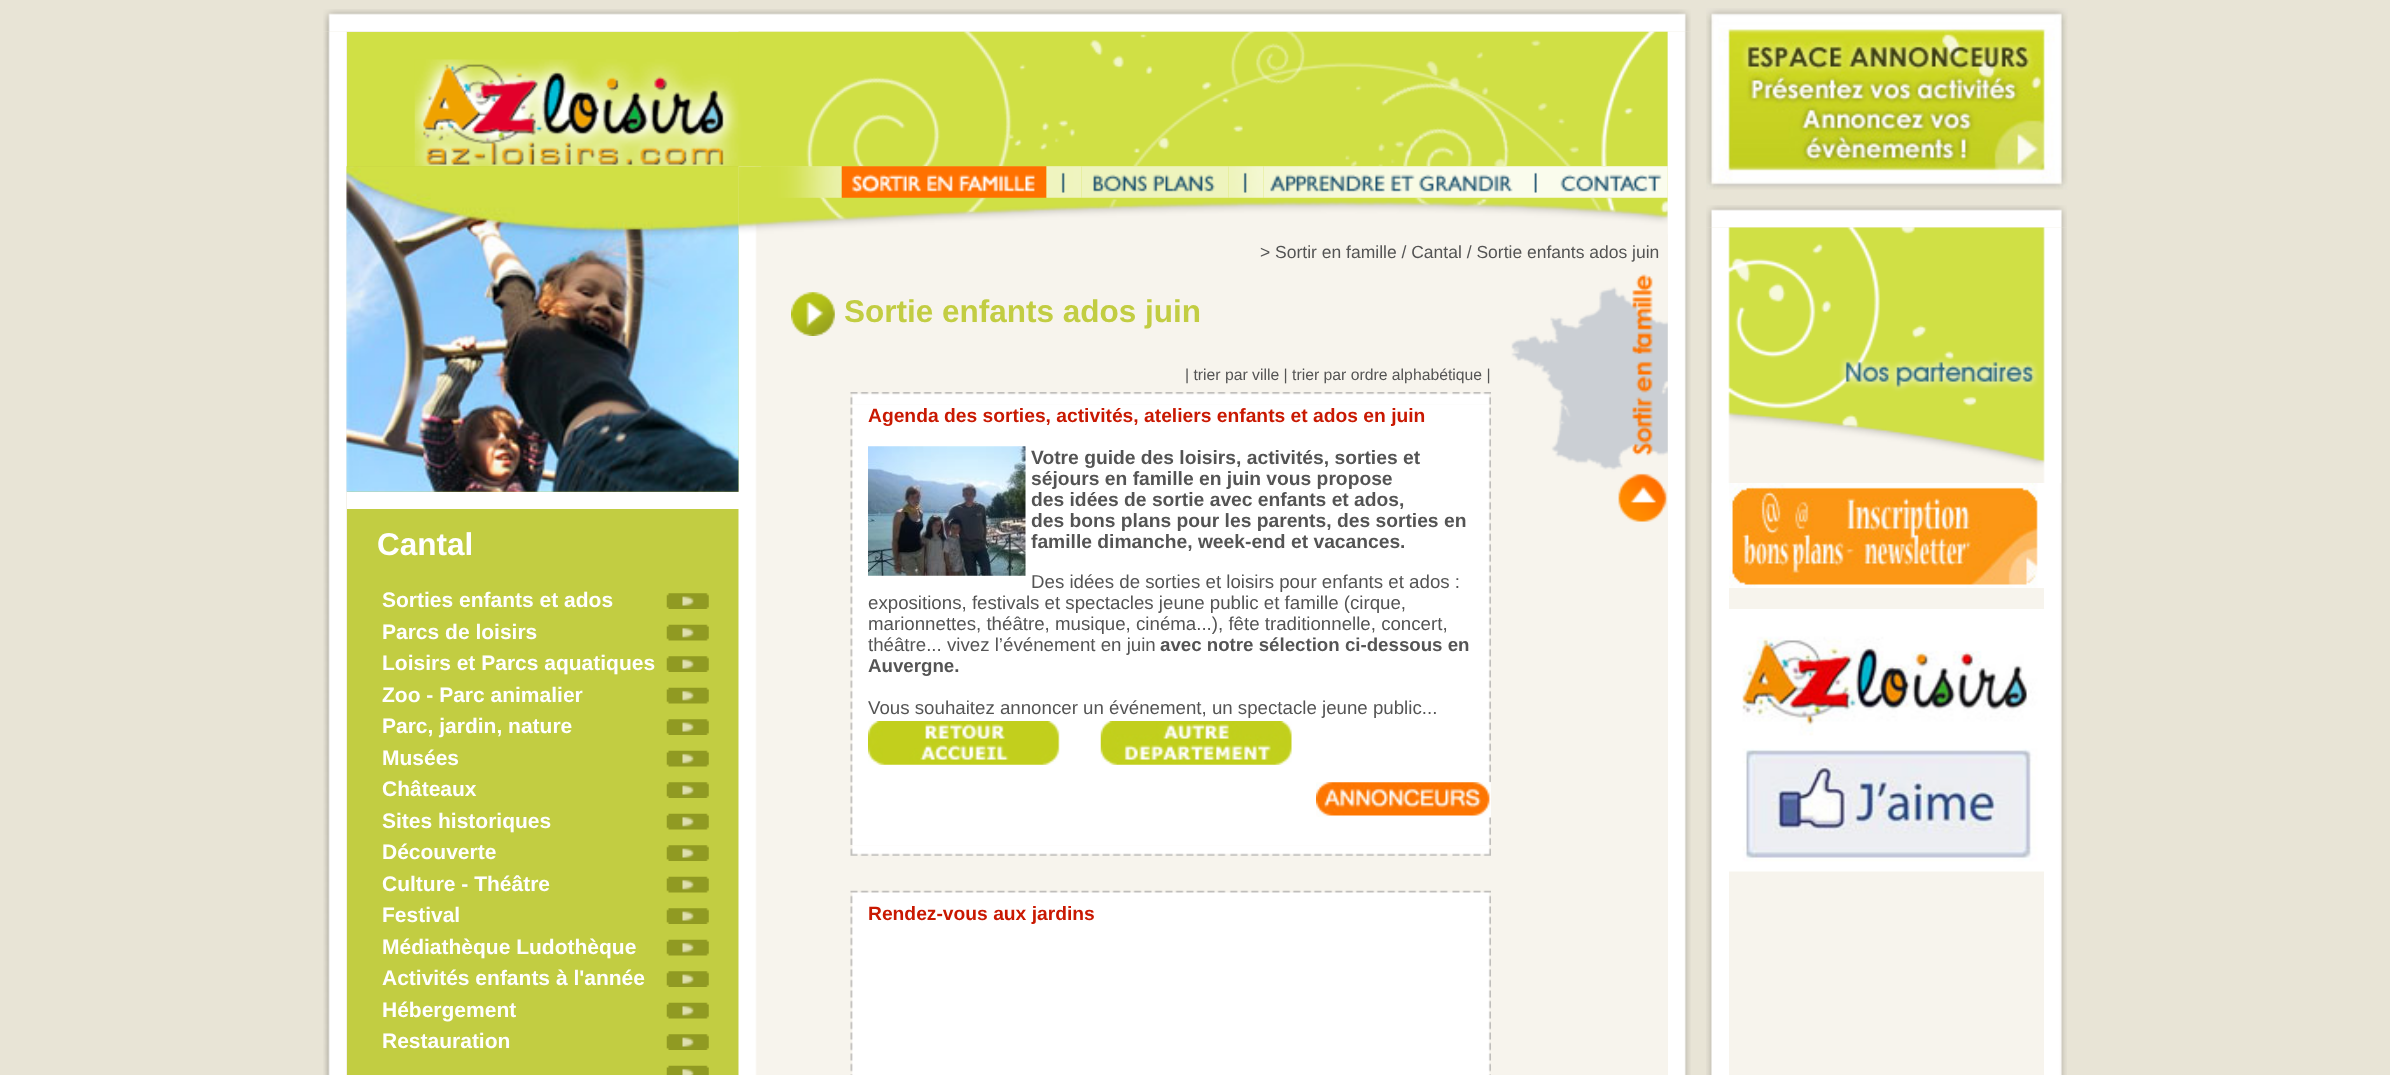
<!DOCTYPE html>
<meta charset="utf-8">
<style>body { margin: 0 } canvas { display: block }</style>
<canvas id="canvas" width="2390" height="1075"></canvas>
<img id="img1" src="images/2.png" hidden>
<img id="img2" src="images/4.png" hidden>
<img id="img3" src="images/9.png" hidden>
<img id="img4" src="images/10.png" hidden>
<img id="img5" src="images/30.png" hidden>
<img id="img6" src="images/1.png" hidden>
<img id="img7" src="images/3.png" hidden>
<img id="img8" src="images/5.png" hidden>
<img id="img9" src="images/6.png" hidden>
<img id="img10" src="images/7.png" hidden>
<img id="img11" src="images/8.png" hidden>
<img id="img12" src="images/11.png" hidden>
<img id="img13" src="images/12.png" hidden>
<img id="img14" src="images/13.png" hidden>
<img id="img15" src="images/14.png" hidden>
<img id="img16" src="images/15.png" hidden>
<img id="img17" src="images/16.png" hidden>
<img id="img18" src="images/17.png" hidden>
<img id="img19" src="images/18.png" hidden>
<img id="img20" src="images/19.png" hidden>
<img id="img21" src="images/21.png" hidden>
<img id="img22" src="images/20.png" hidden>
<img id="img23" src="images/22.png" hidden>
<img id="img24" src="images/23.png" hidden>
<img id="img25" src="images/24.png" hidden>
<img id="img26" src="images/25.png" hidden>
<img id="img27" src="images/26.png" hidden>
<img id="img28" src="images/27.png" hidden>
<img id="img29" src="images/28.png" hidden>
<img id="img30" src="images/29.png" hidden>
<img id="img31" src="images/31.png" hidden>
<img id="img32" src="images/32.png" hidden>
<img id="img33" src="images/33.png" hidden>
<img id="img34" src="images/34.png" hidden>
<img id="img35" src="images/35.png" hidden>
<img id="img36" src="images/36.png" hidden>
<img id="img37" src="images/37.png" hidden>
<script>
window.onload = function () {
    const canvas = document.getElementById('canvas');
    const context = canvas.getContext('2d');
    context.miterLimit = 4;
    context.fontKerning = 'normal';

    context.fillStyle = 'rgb(232, 228, 214)';
    context.fillRect(0, 0, 2390, 1075);
    context.drawImage(document.getElementById('img1'), 323, 31, 24, 1044);
    context.fillStyle = 'rgb(208, 224, 69)';
    context.fillRect(347, 32, 392, 134);
    context.drawImage(document.getElementById('img2'), 738, 31, 930, 136);
    context.fillStyle = 'rgb(194, 205, 66)';
    context.fillRect(347, 166, 392, 909);
    context.fillStyle = 'rgb(255, 255, 255)';
    context.fillRect(347, 492, 392, 17);
    context.drawImage(document.getElementById('img3'), 738, 166, 930, 909);
    context.drawImage(document.getElementById('img4'), 738, 166, 930, 69);
    context.drawImage(document.getElementById('img5'), 1667, 31, 24, 1044);
    context.drawImage(document.getElementById('img6'), 323, 9, 1368, 23);
    context.drawImage(document.getElementById('img7'), 414, 59, 325, 108);
    context.drawImage(document.getElementById('img8'), 346, 166, 393, 326);
    context.drawImage(document.getElementById('img9'), 666, 593, 43, 16);
    context.drawImage(document.getElementById('img10'), 666, 624, 43, 17);
    context.drawImage(document.getElementById('img9'), 666, 656, 43, 16);
    context.drawImage(document.getElementById('img10'), 666, 687, 43, 17);
    context.drawImage(document.getElementById('img9'), 666, 719, 43, 16);
    context.drawImage(document.getElementById('img10'), 666, 750, 43, 17);
    context.drawImage(document.getElementById('img9'), 666, 782, 43, 16);
    context.drawImage(document.getElementById('img10'), 666, 813, 43, 17);
    context.drawImage(document.getElementById('img9'), 666, 845, 43, 16);
    context.drawImage(document.getElementById('img10'), 666, 876, 43, 17);
    context.drawImage(document.getElementById('img9'), 666, 908, 43, 16);
    context.drawImage(document.getElementById('img10'), 666, 939, 43, 17);
    context.drawImage(document.getElementById('img9'), 666, 971, 43, 16);
    context.drawImage(document.getElementById('img10'), 666, 1002, 43, 17);
    context.drawImage(document.getElementById('img9'), 666, 1034, 43, 16);
    context.drawImage(document.getElementById('img11'), 666, 1065, 43, 10);
    context.drawImage(document.getElementById('img12'), 761, 166, 81, 32);
    context.drawImage(document.getElementById('img13'), 841, 166, 206, 32);
    context.drawImage(document.getElementById('img14'), 1046, 166, 36, 32);
    context.drawImage(document.getElementById('img15'), 1081, 166, 148, 32);
    context.drawImage(document.getElementById('img16'), 1228, 166, 36, 32);
    context.drawImage(document.getElementById('img17'), 1263, 166, 256, 32);
    context.drawImage(document.getElementById('img18'), 1519, 166, 35, 32);
    context.drawImage(document.getElementById('img19'), 1554, 166, 114, 32);
    context.drawImage(document.getElementById('img20'), 791, 292, 44, 44);
    context.drawImage(document.getElementById('img21'), 850, 404, 641, 442);
    context.drawImage(document.getElementById('img22'), 850, 392, 641, 13);
    context.drawImage(document.getElementById('img23'), 868, 446, 158, 130);
    context.drawImage(document.getElementById('img24'), 868, 721, 192, 44);
    context.drawImage(document.getElementById('img25'), 1100, 721, 192, 44);
    context.drawImage(document.getElementById('img26'), 1316, 782, 175, 36);
    context.drawImage(document.getElementById('img27'), 850, 845, 641, 11);
    context.drawImage(document.getElementById('img28'), 850, 890, 641, 13);
    context.drawImage(document.getElementById('img29'), 850, 903, 641, 172);
    context.drawImage(document.getElementById('img30'), 1511, 274, 157, 248);
    context.drawImage(document.getElementById('img31'), 1706, 8, 362, 182);
    context.drawImage(document.getElementById('img32'), 1706, 205, 361, 23);
    context.drawImage(document.getElementById('img33'), 1706, 227, 361, 256);
    context.drawImage(document.getElementById('img34'), 1706, 483, 23, 592);
    context.fillStyle = 'rgb(247, 244, 237)';
    context.fillRect(1729, 588, 315, 487);
    context.drawImage(document.getElementById('img35'), 1729, 483, 315, 105);
    context.drawImage(document.getElementById('img36'), 1729, 609, 315, 263);
    context.drawImage(document.getElementById('img37'), 2044, 483, 23, 592);
    context.font = 'bold 31.5px Liberation Sans';
    context.fillStyle = 'rgb(255, 255, 255)';
    context.fillText('Cantal', 377, 555);
    context.font = 'bold 21px Liberation Sans';
    context.fillText('Sorties enfants et ados', 382, 607);
    context.fillText('Parcs de loisirs', 382, 639);
    context.fillText('Loisirs et Parcs aquatiques', 382, 670);
    context.fillText('Zoo - Parc animalier', 382, 702);
    context.fillText('Parc, jardin, nature', 382, 733);
    context.fillText('Musées', 382, 765);
    context.fillText('Châteaux', 382, 796);
    context.fillText('Sites historiques', 382, 828);
    context.fillText('Découverte', 382, 859);
    context.fillText('Culture - Théâtre', 382, 891);
    context.fillText('Festival', 382, 922);
    context.fillText('Médiathèque Ludothèque', 382, 954);
    context.fillText('Activités enfants à l\'année', 382, 985);
    context.fillText('Hébergement', 382, 1017);
    context.fillText('Restauration', 382, 1048);
    context.font = '17.5px Liberation Sans';
    context.fillStyle = 'rgb(84, 84, 84)';
    context.fillText('> Sortir en famille / Cantal / Sortie enfants ados juin', 1260, 258);
    context.font = 'bold 31.5px Liberation Sans';
    context.fillStyle = 'rgb(194, 205, 66)';
    context.fillText('Sortie enfants ados juin', 844, 322);
    context.font = '15.75px Liberation Sans';
    context.fillStyle = 'rgb(84, 84, 84)';
    context.fillText('| trier par ville | trier par ordre alphabétique |', 1185, 380);
    context.font = 'bold 19.25px Liberation Sans';
    context.fillStyle = 'rgb(201, 24, 1)';
    context.fillText('Agenda des sorties, activités, ateliers enfants et ados en juin', 868, 422);
    context.fillStyle = 'rgb(84, 84, 84)';
    context.fillText('Votre guide des loisirs, activités, sorties et', 1031, 464);
    context.fillText('séjours en famille en juin vous propose', 1031, 485);
    context.fillText('des idées de sortie avec enfants et ados,', 1031, 506);
    context.fillText('des bons plans pour les parents, des sorties en', 1031, 527);
    context.fillText('famille dimanche, week-end et vacances.', 1031, 548);
    context.font = '18.7px Liberation Sans';
    context.fillText('Des idées de sorties et loisirs pour enfants et ados :', 1031, 588);
    context.fillText('expositions, festivals et spectacles jeune public et famille (cirque,', 868, 609);
    context.fillText('marionnettes, théâtre, musique, cinéma...), fête traditionnelle, concert,', 868, 630);
    context.fillText('théâtre... vivez l’événement en juin', 868, 651);
    context.font = 'bold 18.7px Liberation Sans';
    context.fillText('avec notre sélection ci-dessous en', 1160, 651);
    context.fillText('Auvergne.', 868, 672);
    context.font = '18.7px Liberation Sans';
    context.fillText('Vous souhaitez annoncer un événement, un spectacle jeune public...', 868, 714);
    context.font = 'bold 19.25px Liberation Sans';
    context.fillStyle = 'rgb(201, 24, 1)';
    context.fillText('Rendez-vous aux jardins', 868, 920);
};
</script>
